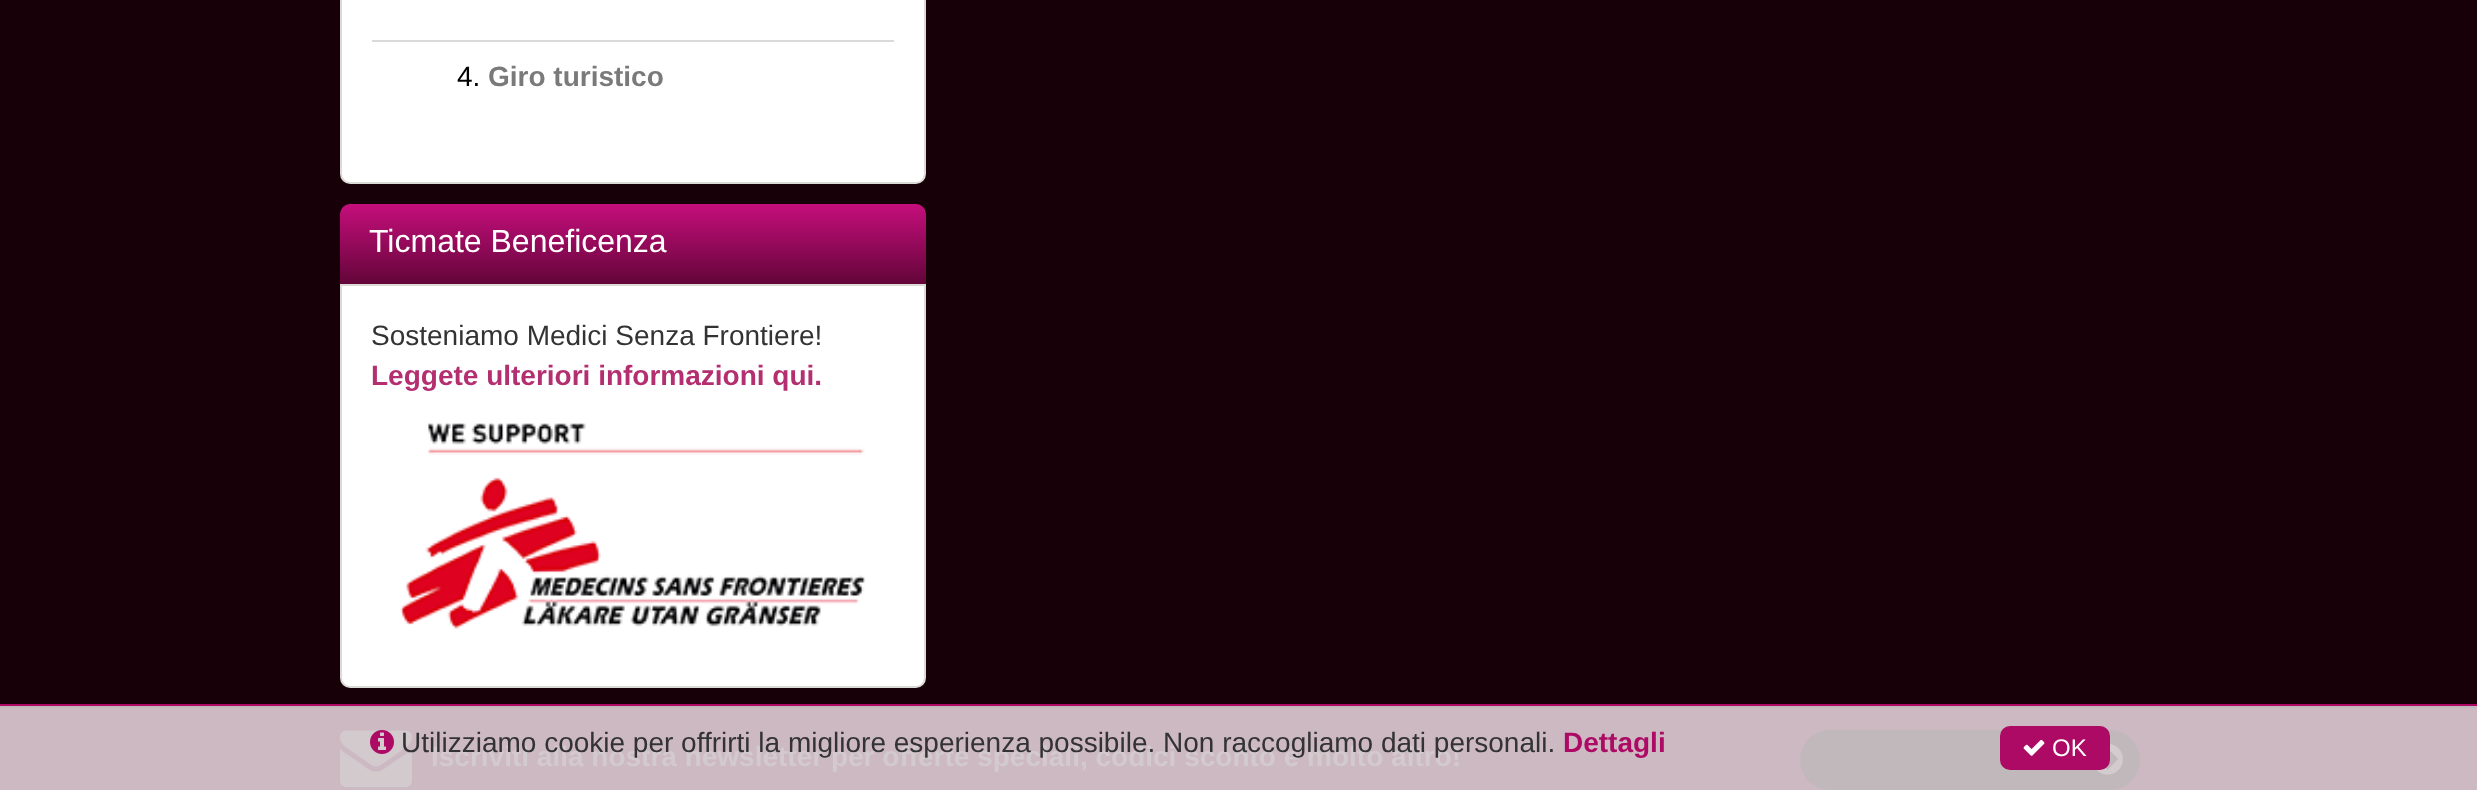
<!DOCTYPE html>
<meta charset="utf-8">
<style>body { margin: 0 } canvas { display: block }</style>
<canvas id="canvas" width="2477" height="790"></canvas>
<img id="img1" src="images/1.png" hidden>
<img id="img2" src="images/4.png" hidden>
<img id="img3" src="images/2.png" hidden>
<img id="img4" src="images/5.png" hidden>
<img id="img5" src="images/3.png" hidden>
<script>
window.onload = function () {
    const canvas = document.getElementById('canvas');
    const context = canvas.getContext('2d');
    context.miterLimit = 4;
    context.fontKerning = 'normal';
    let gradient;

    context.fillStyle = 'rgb(24, 0, 8)';
    context.fillRect(0, 0, 2477, 790);
    context.fillStyle = 'rgb(190, 184, 184)';
    context.fillRect(0, 706, 2477, 2);
    context.fillStyle = 'rgb(255, 255, 255)';
    context.beginPath();
    context.moveTo(341, -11);
    context.lineTo(925, -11);
    context.lineTo(925, 174);
    context.bezierCurveTo(925, 179, 921, 183, 916, 183);
    context.lineTo(350, 183);
    context.bezierCurveTo(345, 183, 341, 179, 341, 174);
    context.closePath();
    context.fill();
    context.strokeStyle = 'rgb(219, 218, 215)';
    context.lineWidth = 2;
    context.stroke();
    context.fillStyle = 'rgb(219, 218, 218)';
    context.fillRect(372, 40, 522, 2);
    gradient = context.createLinearGradient(633, 204, 633, 284);
    gradient.addColorStop(0, 'rgb(198, 14, 124)');
    gradient.addColorStop(1, 'rgb(99, 5, 57)');
    context.fillStyle = gradient;
    context.beginPath();
    context.roundRect(340, 204, 586, 80, [10, 10, 0, 0]);
    context.fill();
    context.fillStyle = 'rgb(255, 255, 255)';
    context.beginPath();
    context.roundRect(341, 285, 584, 402, [0, 0, 9, 9]);
    context.fill();
    context.stroke();
    context.drawImage(document.getElementById('img1'), 400, 423, 466, 206);
    context.fillStyle = 'rgb(173, 10, 101)';
    context.fillRect(0, 704, 2477, 2);
    context.fillStyle = 'rgb(205, 185, 194)';
    context.fillRect(0, 708, 2477, 82);
    context.drawImage(document.getElementById('img2'), 340, 730, 72, 58);
    context.drawImage(document.getElementById('img3'), 370, 730, 24, 24);
    context.fillStyle = 'rgb(193, 184, 187)';
    context.beginPath();
    context.roundRect(1800, 730, 340, 60, 30);
    context.fill();
    context.drawImage(document.getElementById('img4'), 2096, 744, 27, 31);
    context.fillStyle = 'rgb(173, 10, 101)';
    context.beginPath();
    context.roundRect(2001, 727, 108, 42, 9);
    context.fill();
    context.strokeStyle = 'rgb(173, 10, 101)';
    context.stroke();
    context.drawImage(document.getElementById('img5'), 2023, 739, 22, 17);
    context.font = '28px Liberation Sans';
    context.fillStyle = 'rgb(0, 0, 0)';
    context.fillText('4.', 457, 86);
    context.font = 'bold 28px Liberation Sans';
    context.fillStyle = 'rgb(122, 122, 122)';
    context.fillText('Giro turistico', 488, 86);
    context.font = '32px Liberation Sans';
    context.fillStyle = 'rgb(255, 255, 255)';
    context.fillText('Ticmate Beneficenza', 369, 252);
    context.font = '28px Liberation Sans';
    context.fillStyle = 'rgb(51, 51, 51)';
    context.fillText('Sosteniamo Medici Senza Frontiere!', 371, 345);
    context.font = 'bold 28px Liberation Sans';
    context.fillStyle = 'rgb(180, 47, 112)';
    context.fillText('Leggete ulteriori informazioni qui.', 371, 385);
    context.fillStyle = 'rgb(173, 10, 101)';
    context.fillText('Dettagli', 1563, 752);
    context.font = '24px Liberation Sans';
    context.fillStyle = 'rgb(255, 255, 255)';
    context.fillText('OK', 2052, 756);
    context.font = 'bold 28px Liberation Sans';
    context.fillStyle = 'rgb(211, 202, 205)';
    context.fillText('Iscriviti alla nostra newsletter per offerte speciali, codici sconto e molto altro!', 431, 766);
    context.font = '28px Liberation Sans';
    context.fillStyle = 'rgb(51, 51, 51)';
    context.fillText('Utilizziamo cookie per offrirti la migliore esperienza possibile. Non raccogliamo dati personali.', 401, 752);
};
</script>
